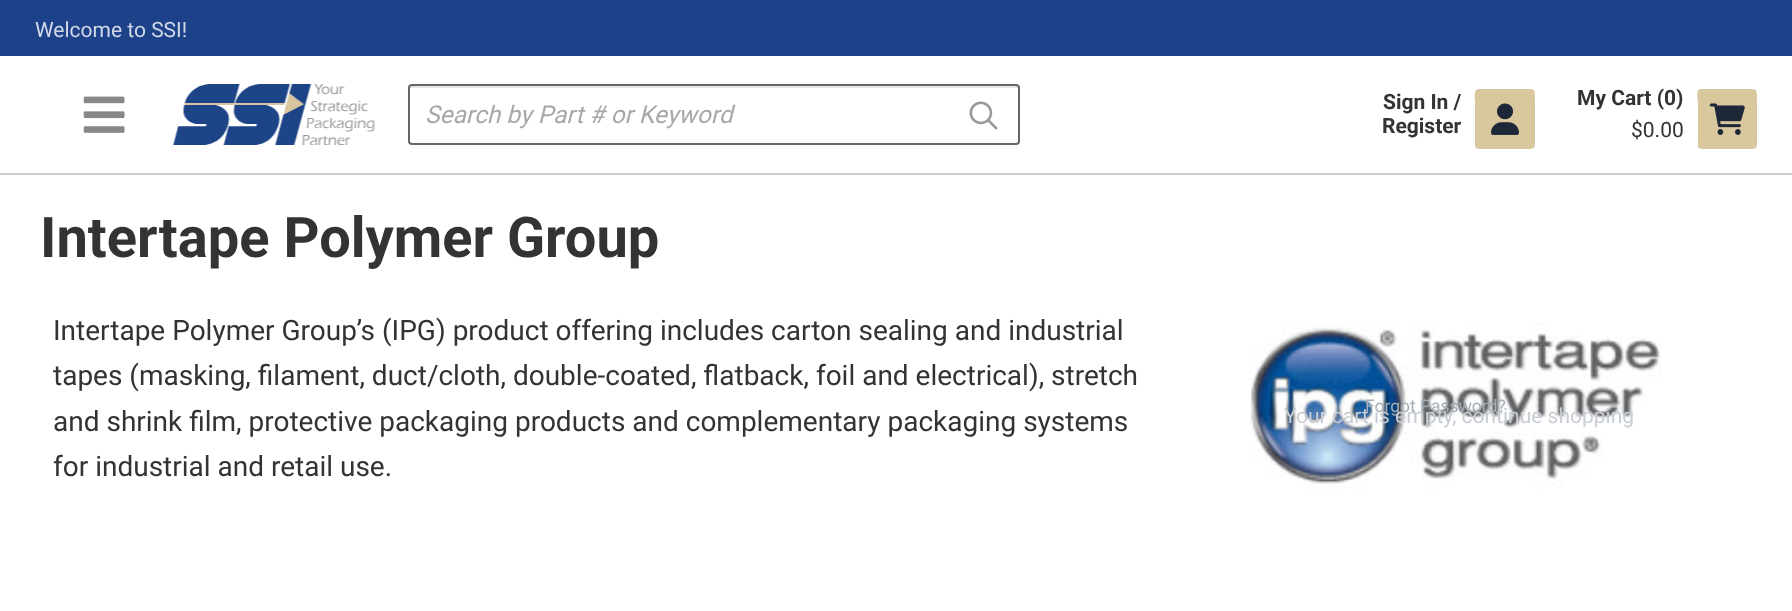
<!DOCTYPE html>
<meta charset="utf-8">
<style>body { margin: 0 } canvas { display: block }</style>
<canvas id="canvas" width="1792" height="611"></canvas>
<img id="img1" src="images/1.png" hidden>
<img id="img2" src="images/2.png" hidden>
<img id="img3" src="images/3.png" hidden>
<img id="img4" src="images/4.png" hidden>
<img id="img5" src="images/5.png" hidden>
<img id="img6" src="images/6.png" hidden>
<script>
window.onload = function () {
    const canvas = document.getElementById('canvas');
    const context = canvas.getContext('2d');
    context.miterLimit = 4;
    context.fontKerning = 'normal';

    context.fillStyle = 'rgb(255, 255, 255)';
    context.fillRect(0, 0, 1792, 611);
    context.fillStyle = 'rgb(204, 204, 204)';
    context.fillRect(0, 173, 1792, 2);
    context.fillStyle = 'rgb(29, 66, 138)';
    context.fillRect(0, 0, 1792, 56);
    context.drawImage(document.getElementById('img1'), 83, 96, 42, 37);
    context.drawImage(document.getElementById('img2'), 173, 84, 202, 61);
    context.fillStyle = 'rgb(230, 230, 230)';
    context.beginPath();
    context.moveTo(411, 88);
    context.lineTo(1017, 88);
    context.bezierCurveTo(1018, 88, 1018, 88, 1018, 89);
    context.lineTo(1018, 144);
    context.lineTo(1019, 142);
    context.lineTo(1019, 88);
    context.bezierCurveTo(1019, 87, 1018, 86, 1017, 86);
    context.lineTo(412, 86);
    context.bezierCurveTo(410, 86, 410, 88, 410, 89);
    context.bezierCurveTo(410, 88, 410, 88, 411, 88);
    context.closePath();
    context.fill();
    context.beginPath();
    context.roundRect(409, 85, 610, 59, 3);
    context.strokeStyle = 'rgb(102, 102, 102)';
    context.lineWidth = 2;
    context.stroke();
    context.drawImage(document.getElementById('img3'), 969, 101, 29, 29);
    context.fillStyle = 'rgb(217, 200, 158)';
    context.beginPath();
    context.moveTo(1701, 89);
    context.lineTo(1745, 89);
    context.bezierCurveTo(1758, 89, 1757, 88, 1757, 102);
    context.lineTo(1757, 137);
    context.bezierCurveTo(1757, 150, 1758, 149, 1745, 149);
    context.lineTo(1710, 149);
    context.bezierCurveTo(1696, 149, 1698, 150, 1698, 137);
    context.lineTo(1698, 102);
    context.bezierCurveTo(1698, 100, 1695, 89, 1701, 89);
    context.closePath();
    context.fill();
    context.drawImage(document.getElementById('img4'), 1709, 103, 36, 32);
    context.beginPath();
    context.moveTo(1479, 89);
    context.lineTo(1523, 89);
    context.bezierCurveTo(1536, 89, 1535, 88, 1535, 102);
    context.lineTo(1535, 137);
    context.bezierCurveTo(1535, 150, 1536, 149, 1523, 149);
    context.lineTo(1487, 149);
    context.bezierCurveTo(1474, 149, 1475, 150, 1475, 137);
    context.lineTo(1475, 102);
    context.bezierCurveTo(1475, 100, 1473, 89, 1479, 89);
    context.closePath();
    context.fill();
    context.drawImage(document.getElementById('img5'), 1491, 103, 28, 32);
    context.drawImage(document.getElementById('img6'), 1250, 322, 411, 168);
    context.font = '21px Roboto';
    context.fillStyle = 'rgb(210, 217, 232)';
    context.fillText('Welcome to SSI!', 35, 37);
    context.font = 'italic 24.5px Roboto';
    context.fillStyle = 'rgb(168, 168, 168)';
    context.fillText('Search by Part # or Keyword', 425, 123);
    context.font = 'bold 21px Roboto';
    context.fillStyle = 'rgb(51, 51, 51)';
    context.fillText('My Cart (0)', 1577, 105);
    context.font = '21px Roboto';
    context.fillText('$0.00', 1631, 137);
    context.font = 'bold 21px Roboto';
    context.fillText('Sign In /', 1383, 109);
    context.fillText('Register', 1382, 133);
    context.font = '17.5px Roboto';
    context.fillStyle = 'rgb(164, 173, 183)';
    context.fillText('Forgot Password?', 1365, 412);
    context.font = '21px Roboto';
    context.fillStyle = 'rgb(200, 205, 212)';
    context.fillText('Your cart is empty, continue shopping', 1284, 423);
    context.font = 'bold 56px Roboto';
    context.fillStyle = 'rgb(51, 51, 51)';
    context.fillText('Intertape Polymer Group', 40, 257);
    context.font = '28px Roboto';
    context.fillText('Intertape Polymer Group’s (IPG) product offering includes carton sealing and industrial', 53, 340);
    context.fillText('tapes (masking, filament, duct/cloth, double-coated, flatback, foil and electrical), stretch', 53, 385);
    context.fillText('and shrink film, protective packaging products and complementary packaging systems', 53, 431);
    context.fillText('for industrial and retail use.', 53, 476);
};
</script>
